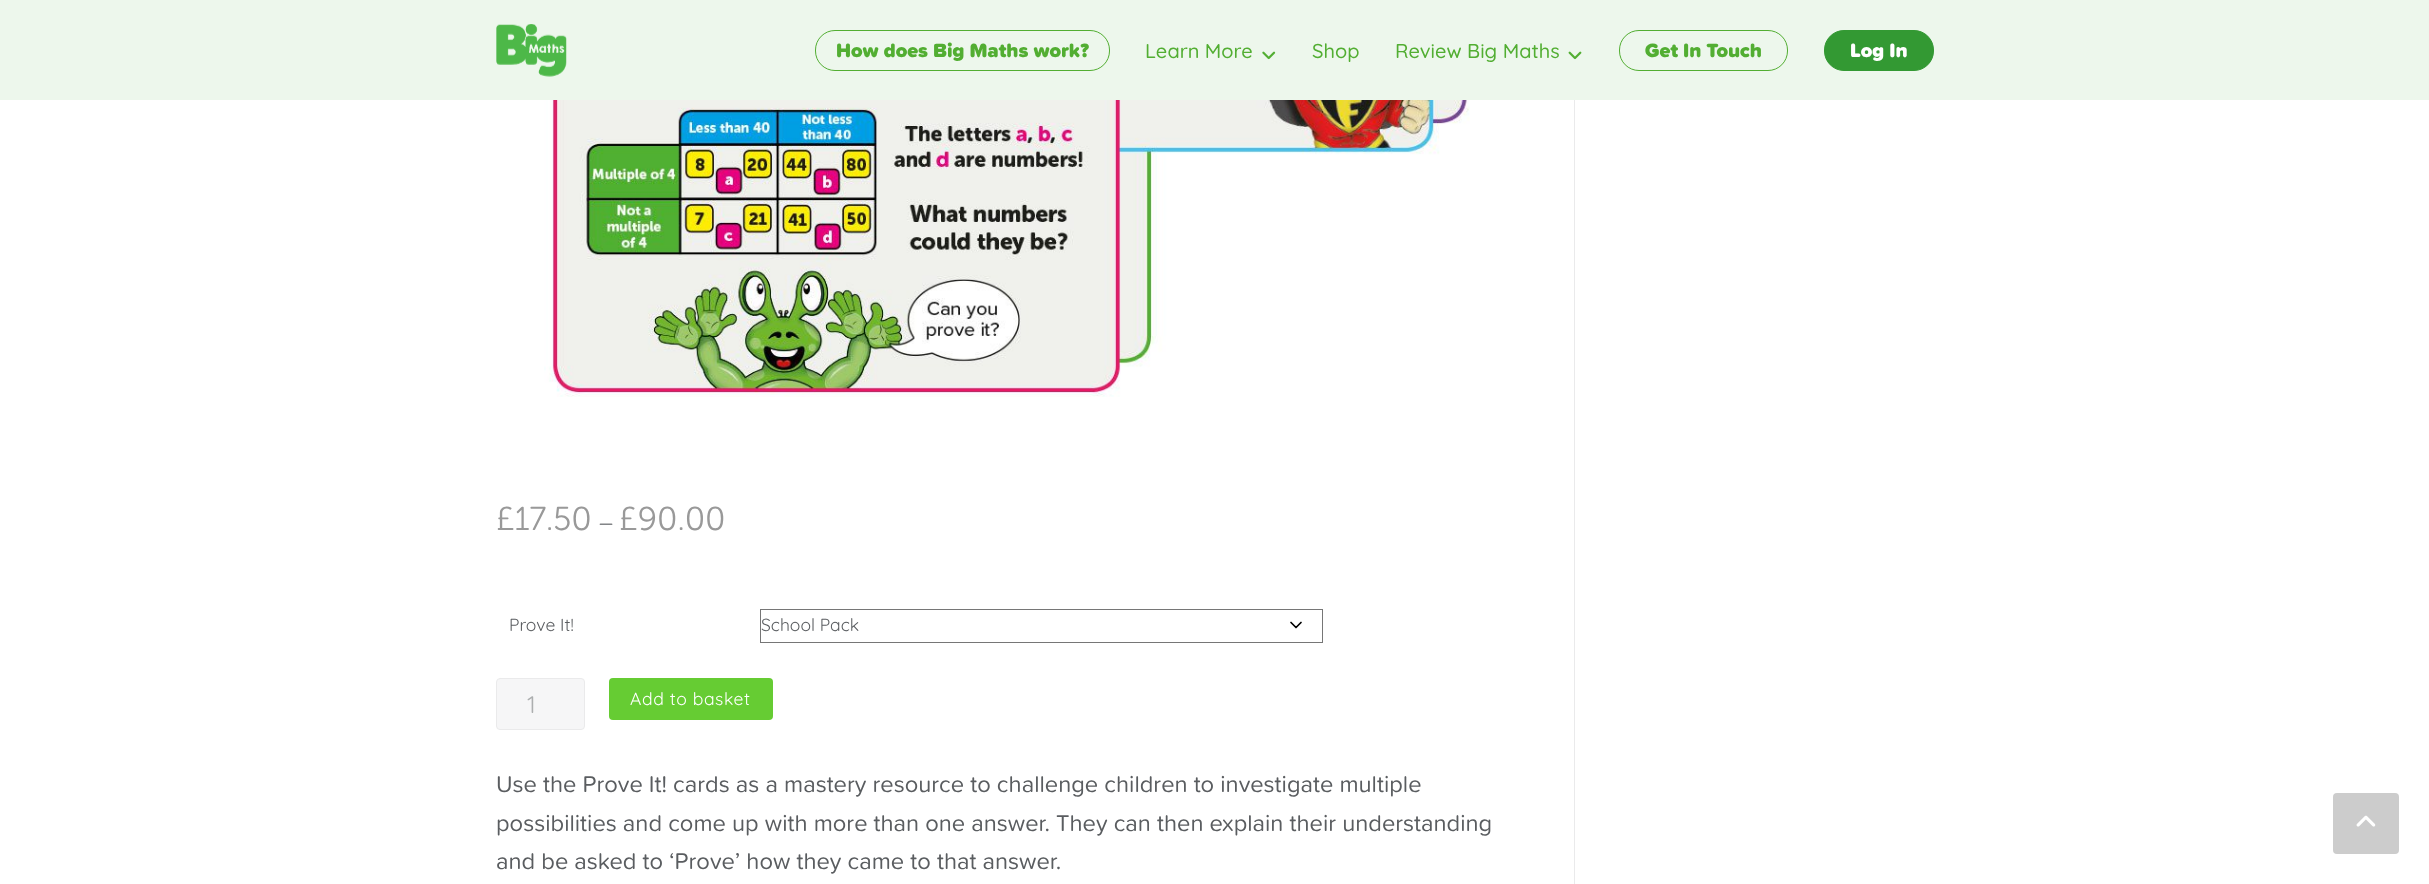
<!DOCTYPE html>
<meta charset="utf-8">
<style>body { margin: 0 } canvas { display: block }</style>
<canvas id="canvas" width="2429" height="884"></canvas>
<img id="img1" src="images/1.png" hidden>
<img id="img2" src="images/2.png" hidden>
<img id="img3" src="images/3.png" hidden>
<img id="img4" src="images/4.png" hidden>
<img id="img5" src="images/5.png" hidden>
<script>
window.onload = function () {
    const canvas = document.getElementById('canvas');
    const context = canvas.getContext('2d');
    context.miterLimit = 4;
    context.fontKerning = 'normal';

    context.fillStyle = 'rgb(255, 255, 255)';
    context.fillRect(0, 0, 2429, 884);
    context.fillStyle = 'rgb(237, 247, 236)';
    context.fillRect(0, 0, 2429, 100);
    context.drawImage(document.getElementById('img1'), 496, 24, 71, 53);
    context.beginPath();
    context.roundRect(815.5, 30.5, 294, 40, 19.5);
    context.strokeStyle = 'rgb(82, 174, 50)';
    context.stroke();
    context.drawImage(document.getElementById('img2'), 1262, 51, 14, 9);
    context.drawImage(document.getElementById('img3'), 1568, 51, 14, 9);
    context.beginPath();
    context.roundRect(1619.5, 30.5, 168, 40, 19.5);
    context.stroke();
    context.fillStyle = 'rgb(51, 153, 51)';
    context.beginPath();
    context.roundRect(1824.5, 30.5, 109, 40, 19.5);
    context.fill();
    context.strokeStyle = 'rgb(51, 153, 51)';
    context.stroke();
    context.fillStyle = 'rgb(234, 234, 235)';
    context.fillRect(1574, 100, 1, 784);
    context.drawImage(document.getElementById('img4'), 544, 100, 926, 297);
    context.beginPath();
    context.moveTo(1291, 622.5);
    context.lineTo(1296, 627.5);
    context.lineTo(1301, 622.5);
    context.strokeStyle = 'rgb(0, 0, 0)';
    context.lineWidth = 1.7;
    context.lineCap = 'round';
    context.lineJoin = 'round';
    context.stroke();
    context.strokeStyle = 'rgb(118, 118, 118)';
    context.lineWidth = 1;
    context.lineJoin = 'miter';
    context.strokeRect(760.5, 609.5, 562, 33);
    context.fillStyle = 'rgb(246, 246, 247)';
    context.beginPath();
    context.roundRect(496.5, 678.5, 88, 51, 3.5);
    context.fill();
    context.strokeStyle = 'rgb(234, 234, 235)';
    context.stroke();
    context.fillStyle = 'rgb(102, 204, 51)';
    context.beginPath();
    context.roundRect(609, 678, 164, 42, 4);
    context.fill();
    context.fillStyle = 'rgb(204, 204, 204)';
    context.beginPath();
    context.roundRect(2333, 793, 66, 61, 4);
    context.fill();
    context.drawImage(document.getElementById('img5'), 2356, 815, 20, 12);
    context.font = '900 20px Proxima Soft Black';
    context.fillStyle = 'rgb(82, 174, 50)';
    context.fillText('How does Big Maths work?', 836, 57);
    context.font = '500 20px Quicksand';
    context.fillText('Learn More', 1145, 58);
    context.fillText('Shop', 1312, 58);
    context.fillText('Review Big Maths', 1395, 58);
    context.font = '900 20px Proxima Soft Black';
    context.fillText('Get In Touch', 1645, 57);
    context.fillStyle = 'rgb(255, 255, 255)';
    context.fillText('Log In', 1850, 57);
    context.font = '300 33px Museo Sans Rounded';
    context.fillStyle = 'rgb(153, 153, 153)';
    context.fillText('£17.50', 496, 530);
    context.font = '23.7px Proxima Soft';
    context.fillStyle = 'rgb(131, 133, 136)';
    context.fillText('–', 599, 530);
    context.font = '300 33px Museo Sans Rounded';
    context.fillStyle = 'rgb(153, 153, 153)';
    context.fillText('£90.00', 619, 530);
    context.font = '17.5px Quicksand';
    context.fillStyle = 'rgb(90, 93, 96)';
    context.fillText('Prove It!', 509, 631);
    context.fillText('School Pack', 761, 631);
    context.font = '24px Quicksand';
    context.fillStyle = 'rgb(172, 174, 175)';
    context.fillText('1', 527, 713);
    context.letterSpacing = '0.6px';
    context.font = '17.5px Quicksand';
    context.fillStyle = 'rgb(255, 255, 255)';
    context.fillText('Add to basket', 630, 705);
    context.letterSpacing = '0px';
    context.font = '23.7px Proxima Soft';
    context.fillStyle = 'rgb(90, 93, 96)';
    context.fillText('Use the Prove It! cards as a mastery resource to challenge children to investigate multiple', 496, 792);
    context.fillText('possibilities and come up with more than one answer. They can then explain their understanding', 496, 831);
    context.fillText('and be asked to ‘Prove’ how they came to that answer.', 496, 869);
};
</script>
